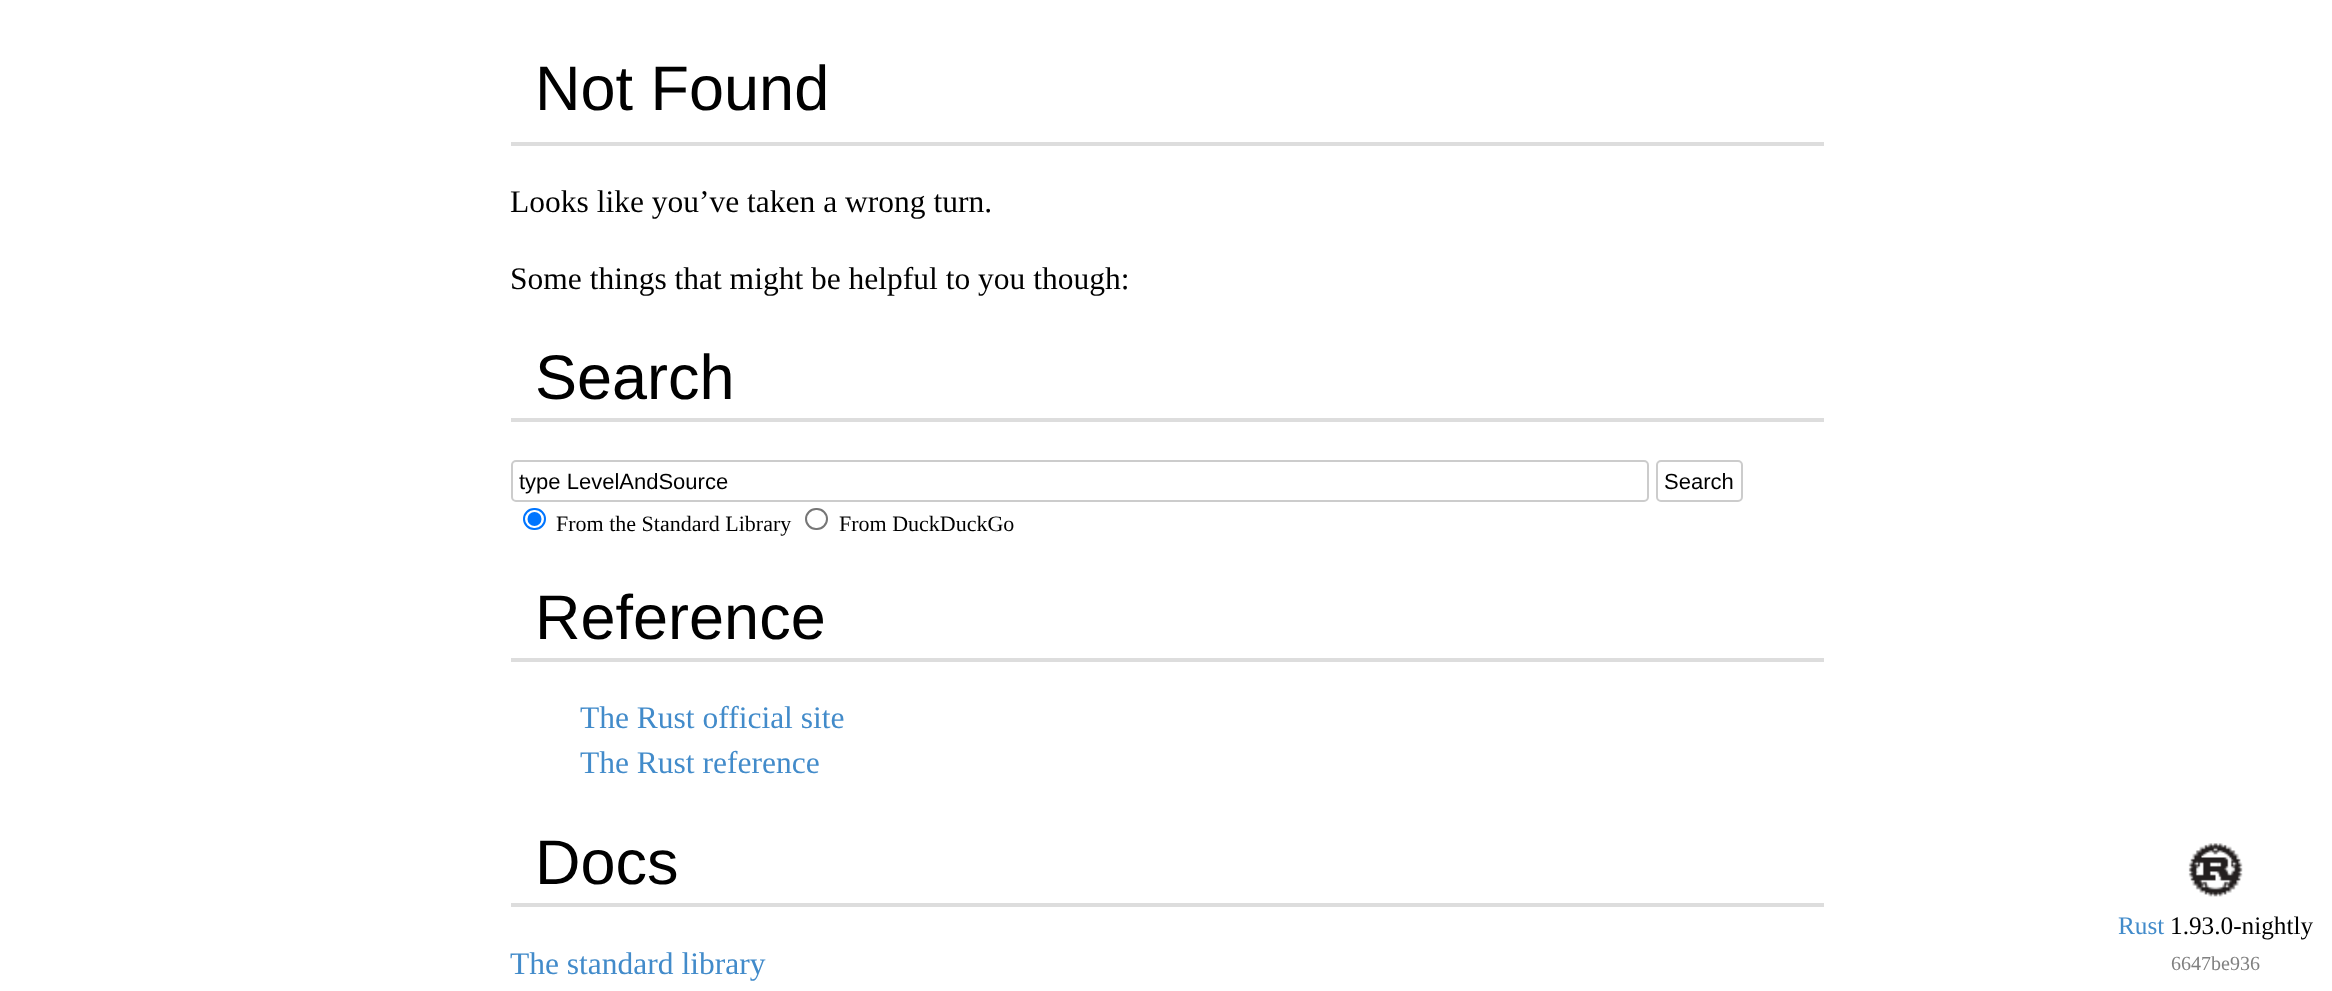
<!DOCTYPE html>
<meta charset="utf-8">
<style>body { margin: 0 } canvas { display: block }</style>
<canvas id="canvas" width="2332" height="991"></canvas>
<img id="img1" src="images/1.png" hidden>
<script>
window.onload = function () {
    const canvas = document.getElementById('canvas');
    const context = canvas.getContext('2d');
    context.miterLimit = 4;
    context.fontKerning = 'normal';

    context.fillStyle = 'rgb(255, 255, 255)';
    context.fillRect(0, 0, 2332, 991);
    context.fillStyle = 'rgb(221, 221, 221)';
    context.fillRect(511, 142, 1313, 4);
    context.fillRect(511, 418, 1313, 4);
    context.beginPath();
    context.roundRect(512, 461, 1136, 40, 4);
    context.strokeStyle = 'rgb(204, 204, 204)';
    context.lineWidth = 2;
    context.stroke();
    context.beginPath();
    context.roundRect(1657, 461, 85, 40, 4);
    context.stroke();
    context.beginPath();
    context.roundRect(524, 509, 21, 20, 10);
    context.strokeStyle = 'rgb(0, 117, 255)';
    context.stroke();
    context.fillStyle = 'rgb(0, 117, 255)';
    context.beginPath();
    context.arc(534.5, 519, 7, 0, 2 * Math.PI);
    context.fill();
    context.beginPath();
    context.roundRect(806, 509, 21, 20, 10);
    context.strokeStyle = 'rgb(118, 118, 118)';
    context.stroke();
    context.fillStyle = 'rgb(221, 221, 221)';
    context.fillRect(511, 658, 1313, 4);
    context.fillRect(511, 903, 1313, 4);
    context.drawImage(document.getElementById('img1'), 2188, 843, 55, 54);
    context.font = '63px Liberation Sans';
    context.fillStyle = 'rgb(0, 0, 0)';
    context.fillText('Not Found', 535, 110);
    context.font = '31.5px Liberation Serif';
    context.fillText('Looks like you’ve taken a wrong turn.', 510, 212);
    context.fillText('Some things that might be helpful to you though:', 510, 289);
    context.font = '63px Liberation Sans';
    context.fillText('Search', 535, 399);
    context.font = '22px Liberation Sans';
    context.fillText('type LevelAndSource', 519, 489);
    context.fillText('Search', 1664, 489);
    context.font = '22px Liberation Serif';
    context.fillText('From the Standard Library', 556, 531);
    context.fillText('From DuckDuckGo', 839, 531);
    context.font = '63px Liberation Sans';
    context.fillText('Reference', 535, 639);
    context.font = '31.5px Liberation Serif';
    context.fillStyle = 'rgb(66, 139, 202)';
    context.fillText('The Rust official site', 580, 728);
    context.fillText('The Rust reference', 580, 773);
    context.font = '63px Liberation Sans';
    context.fillStyle = 'rgb(0, 0, 0)';
    context.fillText('Docs', 535, 884);
    context.font = '31.5px Liberation Serif';
    context.fillStyle = 'rgb(66, 139, 202)';
    context.fillText('The standard library', 510, 974);
    context.font = '25.25px Liberation Serif';
    context.fillText('Rust', 2118, 934);
    context.fillStyle = 'rgb(0, 0, 0)';
    context.fillText('1.93.0-nightly', 2170, 934);
    context.font = '20px Liberation Serif';
    context.fillStyle = 'rgb(128, 128, 128)';
    context.fillText('6647be936', 2171, 970);
};
</script>
